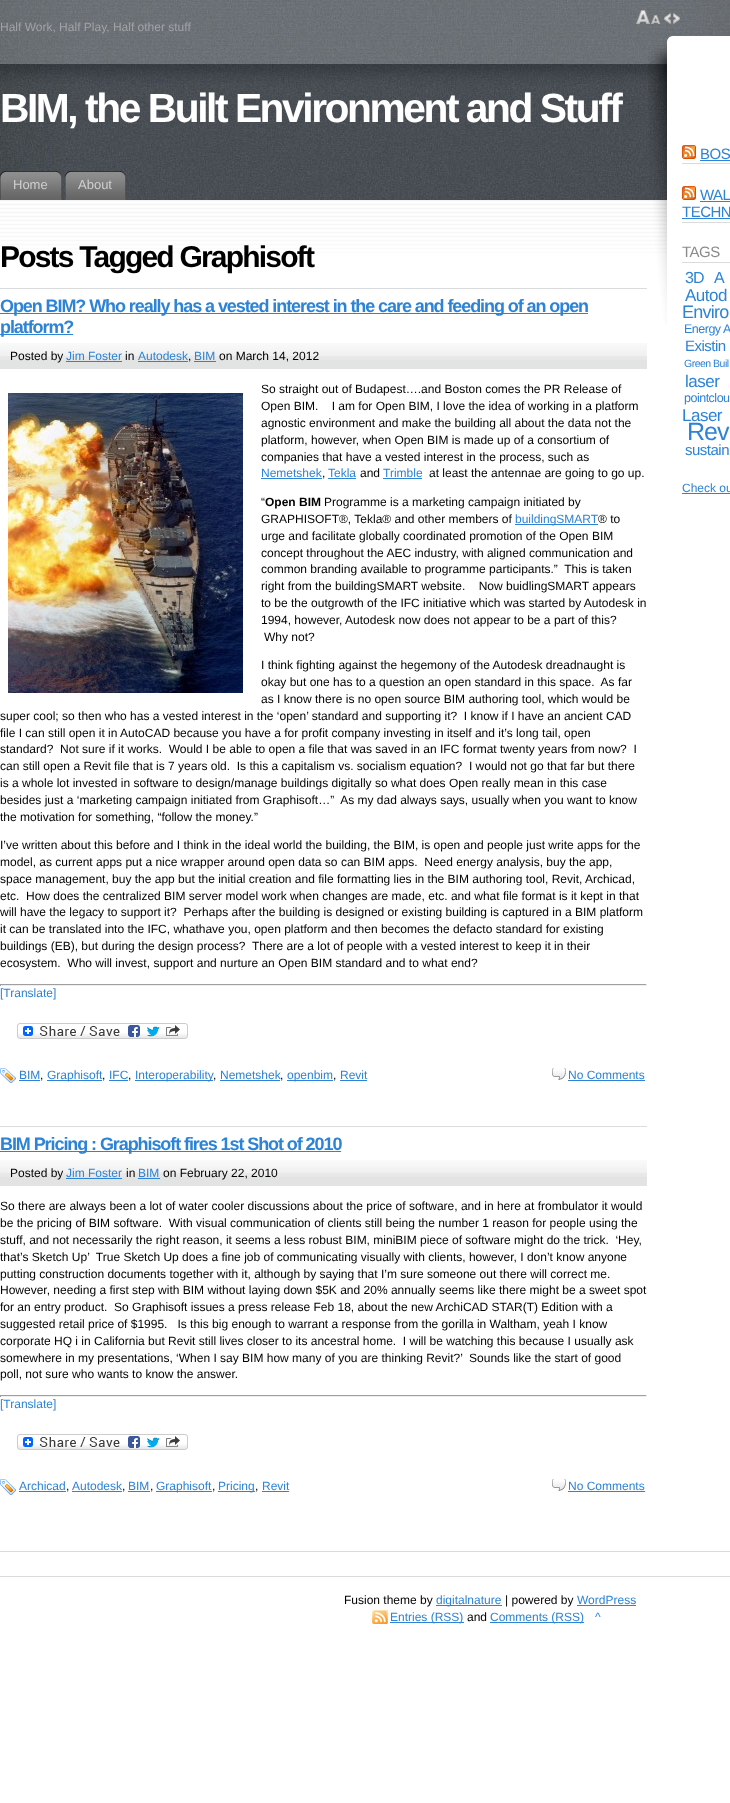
<!DOCTYPE html>
<meta charset="utf-8">
<style>body { margin: 0 } canvas { display: block }</style>
<canvas id="canvas" width="730" height="1803"></canvas>
<img id="img1" src="images/1.png" hidden>
<img id="img2" src="images/2.png" hidden>
<img id="img3" src="images/3.png" hidden>
<img id="img4" src="images/4.png" hidden>
<img id="img5" src="images/5.png" hidden>
<img id="img6" src="images/6.png" hidden>
<img id="img7" src="images/7.png" hidden>
<img id="img8" src="images/8.png" hidden>
<img id="img9" src="images/9.png" hidden>
<img id="img10" src="images/10.png" hidden>
<img id="img11" src="images/11.png" hidden>
<img id="img12" src="images/12.png" hidden>
<img id="img13" src="images/13.png" hidden>
<img id="img14" src="images/14.png" hidden>
<img id="img15" src="images/15.png" hidden>
<img id="img16" src="images/16.png" hidden>
<img id="img17" src="images/17.png" hidden>
<script>
window.onload = function () {
    const canvas = document.getElementById('canvas');
    const context = canvas.getContext('2d');
    context.miterLimit = 4;
    context.fontKerning = 'normal';

    context.fillStyle = 'rgb(255, 255, 255)';
    context.fillRect(0, 0, 730, 1803);
    context.drawImage(document.getElementById('img1'), 0, 200, 667, 53);
    context.drawImage(document.getElementById('img2'), 0, 0, 730, 200);
    context.drawImage(document.getElementById('img3'), 636, 10, 25, 14);
    context.drawImage(document.getElementById('img4'), 664, 13, 16, 11);
    context.drawImage(document.getElementById('img5'), 0, 171, 10, 29);
    context.drawImage(document.getElementById('img6'), 10, 171, 52, 29);
    context.drawImage(document.getElementById('img7'), 65, 171, 10, 29);
    context.drawImage(document.getElementById('img8'), 75, 171, 51, 29);
    context.fillStyle = 'rgb(217, 219, 221)';
    context.fillRect(0, 288, 647, 1);
    context.fillStyle = 'rgb(45, 131, 213)';
    context.fillRect(0, 313, 588, 1);
    context.fillRect(0, 334, 73, 1);
    context.fillStyle = 'rgb(226, 227, 227)';
    context.fillRect(0, 360, 647, 9);
    context.drawImage(document.getElementById('img9'), 0, 343, 647, 17);
    context.fillStyle = 'rgb(45, 131, 213)';
    context.fillRect(66, 361, 56, 1);
    context.fillRect(138, 361, 50, 1);
    context.fillRect(194, 361, 22, 1);
    context.drawImage(document.getElementById('img10'), 8, 393, 235, 300);
    context.fillRect(261, 478, 61, 1);
    context.fillRect(328, 478, 28, 1);
    context.fillRect(383, 478, 39, 1);
    context.fillRect(515, 524, 83, 1);
    context.fillStyle = 'rgb(159, 159, 159)';
    context.fillRect(0, 984, 647, 1);
    context.fillStyle = 'rgb(238, 238, 238)';
    context.fillRect(646, 984, 1, 2);
    context.fillRect(0, 985, 647, 1);
    context.fillStyle = 'rgb(159, 159, 159)';
    context.fillRect(0, 984, 1, 2);
    context.drawImage(document.getElementById('img11'), 17, 1023, 171, 16);
    context.drawImage(document.getElementById('img12'), 0, 1068, 16, 15);
    context.fillStyle = 'rgb(45, 131, 213)';
    context.fillRect(19, 1080, 21, 1);
    context.fillRect(47, 1080, 55, 1);
    context.fillRect(109, 1080, 19, 1);
    context.fillRect(135, 1080, 78, 1);
    context.fillRect(220, 1080, 60, 1);
    context.fillRect(287, 1080, 46, 1);
    context.fillRect(340, 1080, 27, 1);
    context.drawImage(document.getElementById('img13'), 552, 1068, 14, 12);
    context.fillRect(568, 1080, 77, 1);
    context.fillStyle = 'rgb(217, 219, 221)';
    context.fillRect(0, 1126, 647, 1);
    context.fillStyle = 'rgb(45, 131, 213)';
    context.fillRect(0, 1151, 341, 1);
    context.fillStyle = 'rgb(226, 227, 227)';
    context.fillRect(0, 1177, 647, 9);
    context.drawImage(document.getElementById('img9'), 0, 1160, 647, 17);
    context.fillStyle = 'rgb(45, 131, 213)';
    context.fillRect(66, 1178, 56, 1);
    context.fillRect(138, 1178, 22, 1);
    context.fillStyle = 'rgb(159, 159, 159)';
    context.fillRect(0, 1395, 647, 1);
    context.fillStyle = 'rgb(238, 238, 238)';
    context.fillRect(646, 1395, 1, 2);
    context.fillRect(0, 1396, 647, 1);
    context.fillStyle = 'rgb(159, 159, 159)';
    context.fillRect(0, 1395, 1, 2);
    context.drawImage(document.getElementById('img11'), 17, 1434, 171, 16);
    context.drawImage(document.getElementById('img14'), 0, 1479, 16, 16);
    context.fillStyle = 'rgb(45, 131, 213)';
    context.fillRect(19, 1491, 47, 1);
    context.fillRect(72, 1491, 50, 1);
    context.fillRect(128, 1491, 22, 1);
    context.fillRect(156, 1491, 56, 1);
    context.fillRect(218, 1491, 37, 1);
    context.fillRect(262, 1491, 27, 1);
    context.drawImage(document.getElementById('img13'), 552, 1479, 14, 12);
    context.fillRect(568, 1491, 77, 1);
    context.drawImage(document.getElementById('img15'), 648, 36, 31, 288);
    context.fillStyle = 'rgb(255, 255, 255)';
    context.fillRect(679, 36, 51, 164);
    context.fillStyle = 'rgb(217, 219, 221)';
    context.fillRect(682, 163, 48, 1);
    context.drawImage(document.getElementById('img16'), 682, 145, 14, 14);
    context.fillStyle = 'rgb(45, 131, 213)';
    context.fillRect(700, 160, 30, 1);
    context.fillStyle = 'rgb(217, 219, 221)';
    context.fillRect(682, 222, 48, 1);
    context.drawImage(document.getElementById('img16'), 682, 186, 14, 14);
    context.fillStyle = 'rgb(45, 131, 213)';
    context.fillRect(700, 201, 30, 1);
    context.fillRect(682, 218, 48, 1);
    context.fillStyle = 'rgb(217, 219, 221)';
    context.fillRect(682, 262, 48, 1);
    context.fillStyle = 'rgb(45, 131, 213)';
    context.fillRect(682, 493, 48, 1);
    context.fillStyle = 'rgb(217, 219, 221)';
    context.fillRect(0, 1551, 730, 1);
    context.fillRect(0, 1576, 730, 1);
    context.fillStyle = 'rgb(45, 131, 213)';
    context.fillRect(436, 1605, 66, 1);
    context.fillRect(577, 1605, 59, 1);
    context.drawImage(document.getElementById('img17'), 372, 1610, 16, 14);
    context.fillRect(390, 1622, 74, 1);
    context.fillRect(490, 1622, 94, 1);
    context.font = '12px Liberation Sans';
    context.fillStyle = 'rgb(162, 163, 166)';
    context.fillText('Half Work, Half Play, Half other stuff', 0, 31);
    context.letterSpacing = '-2.45px';
    context.font = 'bold 40.75px Liberation Sans';
    context.fillStyle = 'rgb(255, 255, 255)';
    context.fillText('BIM, the Built Environment and Stuff', 0, 122);
    context.letterSpacing = '0px';
    context.font = '13px Liberation Sans';
    context.fillStyle = 'rgb(207, 207, 207)';
    context.fillText('Home', 13, 189);
    context.fillText('About', 78, 189);
    context.letterSpacing = '-1.8px';
    context.font = 'bold 30px Liberation Sans';
    context.fillStyle = 'rgb(0, 0, 0)';
    context.fillText('Posts Tagged Graphisoft', 0, 267);
    context.letterSpacing = '-1.08px';
    context.font = 'bold 18px Liberation Sans';
    context.fillStyle = 'rgb(45, 131, 213)';
    context.fillText('Open BIM? Who really has a vested interest in the care and feeding of an open', 0, 312);
    context.fillText('platform?', 0, 333);
    context.letterSpacing = '0px';
    context.font = '12px Liberation Sans';
    context.fillStyle = 'rgb(0, 0, 0)';
    context.fillText('Posted by', 10, 360);
    context.fillStyle = 'rgb(45, 131, 213)';
    context.fillText('Jim Foster', 66, 360);
    context.fillStyle = 'rgb(0, 0, 0)';
    context.fillText('in', 125, 360);
    context.fillStyle = 'rgb(45, 131, 213)';
    context.fillText('Autodesk', 138, 360);
    context.fillStyle = 'rgb(0, 0, 0)';
    context.fillText(',', 188, 360);
    context.fillStyle = 'rgb(45, 131, 213)';
    context.fillText('BIM', 194, 360);
    context.fillStyle = 'rgb(0, 0, 0)';
    context.fillText('on March 14, 2012', 219, 360);
    context.fillText('So straight out of Budapest….and Boston comes the PR Release of', 261, 393);
    context.fillText('Open BIM.    I am for Open BIM, I love the idea of working in a platform', 261, 410);
    context.fillText('agnostic environment and make the building all about the data not the', 261, 427);
    context.fillText('platform, however, when Open BIM is made up of a consortium of', 261, 444);
    context.fillText('companies that have a vested interest in the process, such as', 261, 461);
    context.fillStyle = 'rgb(45, 131, 213)';
    context.fillText('Nemetshek', 261, 477);
    context.fillStyle = 'rgb(0, 0, 0)';
    context.fillText(',', 322, 477);
    context.fillStyle = 'rgb(45, 131, 213)';
    context.fillText('Tekla', 328, 477);
    context.fillStyle = 'rgb(0, 0, 0)';
    context.fillText('and', 360, 477);
    context.fillStyle = 'rgb(45, 131, 213)';
    context.fillText('Trimble', 383, 477);
    context.fillStyle = 'rgb(0, 0, 0)';
    context.fillText('at least the antennae are going to go up.', 429, 477);
    context.fillText('“', 261, 506);
    context.font = 'bold 12px Liberation Sans';
    context.fillText('Open BIM', 265, 506);
    context.font = '12px Liberation Sans';
    context.fillText('Programme is a marketing campaign initiated by', 324, 506);
    context.fillText('GRAPHISOFT®, Tekla® and other members of', 261, 523);
    context.fillStyle = 'rgb(45, 131, 213)';
    context.fillText('buildingSMART', 515, 523);
    context.fillStyle = 'rgb(0, 0, 0)';
    context.fillText('® to', 598, 523);
    context.fillText('urge and facilitate globally coordinated promotion of the Open BIM', 261, 540);
    context.fillText('concept throughout the AEC industry, with aligned communication and', 261, 557);
    context.fillText('common branding available to programme participants.”  This is taken', 261, 573);
    context.fillText('right from the buildingSMART website.    Now buidlingSMART appears', 261, 590);
    context.fillText('to be the outgrowth of the IFC initiative which was started by Autodesk in', 261, 607);
    context.fillText('1994, however, Autodesk now does not appear to be a part of this?', 261, 624);
    context.fillText('Why not?', 264, 641);
    context.fillText('I think fighting against the hegemony of the Autodesk dreadnaught is', 261, 669);
    context.fillText('okay but one has to a question an open standard in this space.  As far', 261, 686);
    context.fillText('as I know there is no open source BIM authoring tool, which would be', 261, 703);
    context.fillText('super cool; so then who has a vested interest in the ‘open’ standard and supporting it?  I know if I have an ancient CAD', 0, 720);
    context.fillText('file I can still open it in AutoCAD because you have a for profit company investing in itself and it’s long tail, open', 0, 737);
    context.fillText('standard?  Not sure if it works.  Would I be able to open a file that was saved in an IFC format twenty years from now?  I', 0, 753);
    context.fillText('can still open a Revit file that is 7 years old.  Is this a capitalism vs. socialism equation?  I would not go that far but there', 0, 770);
    context.fillText('is a whole lot invested in software to design/manage buildings digitally so what does Open really mean in this case', 0, 787);
    context.fillText('besides just a ‘marketing campaign initiated from Graphisoft…”  As my dad always says, usually when you want to know', 0, 804);
    context.fillText('the motivation for something, “follow the money.”', 0, 821);
    context.fillText('I’ve written about this before and I think in the ideal world the building, the BIM, is open and people just write apps for the', 0, 849);
    context.fillText('model, as current apps put a nice wrapper around open data so can BIM apps.  Need energy analysis, buy the app,', 0, 866);
    context.fillText('space management, buy the app but the initial creation and file formatting lies in the BIM authoring tool, Revit, Archicad,', 0, 883);
    context.fillText('etc.  How does the centralized BIM server model work when changes are made, etc. and what file format is it kept in that', 0, 900);
    context.fillText('will have the legacy to support it?  Perhaps after the building is designed or existing building is captured in a BIM platform', 0, 916);
    context.fillText('it can be translated into the IFC, whathave you, open platform and then becomes the defacto standard for existing', 0, 933);
    context.fillText('buildings (EB), but during the design process?  There are a lot of people with a vested interest to keep it in their', 0, 950);
    context.fillText('ecosystem.  Who will invest, support and nurture an Open BIM standard and to what end?', 0, 967);
    context.fillStyle = 'rgb(45, 131, 213)';
    context.fillText('[Translate]', 0, 997);
    context.fillText('BIM', 19, 1079);
    context.fillStyle = 'rgb(0, 0, 0)';
    context.fillText(',', 40, 1079);
    context.fillStyle = 'rgb(45, 131, 213)';
    context.fillText('Graphisoft', 47, 1079);
    context.fillStyle = 'rgb(0, 0, 0)';
    context.fillText(',', 102, 1079);
    context.fillStyle = 'rgb(45, 131, 213)';
    context.fillText('IFC', 109, 1079);
    context.fillStyle = 'rgb(0, 0, 0)';
    context.fillText(',', 128, 1079);
    context.fillStyle = 'rgb(45, 131, 213)';
    context.fillText('Interoperability', 135, 1079);
    context.fillStyle = 'rgb(0, 0, 0)';
    context.fillText(',', 213, 1079);
    context.fillStyle = 'rgb(45, 131, 213)';
    context.fillText('Nemetshek', 220, 1079);
    context.fillStyle = 'rgb(0, 0, 0)';
    context.fillText(',', 280, 1079);
    context.fillStyle = 'rgb(45, 131, 213)';
    context.fillText('openbim', 287, 1079);
    context.fillStyle = 'rgb(0, 0, 0)';
    context.fillText(',', 333, 1079);
    context.fillStyle = 'rgb(45, 131, 213)';
    context.fillText('Revit', 340, 1079);
    context.fillText('No Comments', 568, 1079);
    context.letterSpacing = '-1.08px';
    context.font = 'bold 18px Liberation Sans';
    context.fillText('BIM Pricing : Graphisoft fires 1st Shot of 2010', 0, 1150);
    context.letterSpacing = '0px';
    context.font = '12px Liberation Sans';
    context.fillStyle = 'rgb(0, 0, 0)';
    context.fillText('Posted by', 10, 1177);
    context.fillStyle = 'rgb(45, 131, 213)';
    context.fillText('Jim Foster', 66, 1177);
    context.fillStyle = 'rgb(0, 0, 0)';
    context.fillText('in', 126, 1177);
    context.fillStyle = 'rgb(45, 131, 213)';
    context.fillText('BIM', 138, 1177);
    context.fillStyle = 'rgb(0, 0, 0)';
    context.fillText('on February 22, 2010', 163, 1177);
    context.fillText('So there are always been a lot of water cooler discussions about the price of software, and in here at frombulator it would', 0, 1210);
    context.fillText('be the pricing of BIM software.  With visual communication of clients still being the number 1 reason for people using the', 0, 1227);
    context.fillText('stuff, and not necessarily the right reason, it seems a less robust BIM, miniBIM piece of software might do the trick.  ‘Hey,', 0, 1244);
    context.fillText('that’s Sketch Up’  True Sketch Up does a fine job of communicating visually with clients, however, I don’t know anyone', 0, 1261);
    context.fillText('putting construction documents together with it, although by saying that I’m sure someone out there will correct me.', 0, 1278);
    context.fillText('However, needing a first step with BIM without laying down $5K and 20% annually seems like there might be a sweet spot', 0, 1294);
    context.fillText('for an entry product.  So Graphisoft issues a press release Feb 18, about the new ArchiCAD STAR(T) Edition with a', 0, 1311);
    context.fillText('suggested retail price of $1995.   Is this big enough to warrant a response from the gorilla in Waltham, yeah I know', 0, 1328);
    context.fillText('corporate HQ i in California but Revit still lives closer to its ancestral home.  I will be watching this because I usually ask', 0, 1345);
    context.fillText('somewhere in my presentations, ‘When I say BIM how many of you are thinking Revit?’  Sounds like the start of good', 0, 1362);
    context.fillText('poll, not sure who wants to know the answer.', 0, 1378);
    context.fillStyle = 'rgb(45, 131, 213)';
    context.fillText('[Translate]', 0, 1408);
    context.fillText('Archicad', 19, 1490);
    context.fillStyle = 'rgb(0, 0, 0)';
    context.fillText(',', 66, 1490);
    context.fillStyle = 'rgb(45, 131, 213)';
    context.fillText('Autodesk', 72, 1490);
    context.fillStyle = 'rgb(0, 0, 0)';
    context.fillText(',', 122, 1490);
    context.fillStyle = 'rgb(45, 131, 213)';
    context.fillText('BIM', 128, 1490);
    context.fillStyle = 'rgb(0, 0, 0)';
    context.fillText(',', 150, 1490);
    context.fillStyle = 'rgb(45, 131, 213)';
    context.fillText('Graphisoft', 156, 1490);
    context.fillStyle = 'rgb(0, 0, 0)';
    context.fillText(',', 212, 1490);
    context.fillStyle = 'rgb(45, 131, 213)';
    context.fillText('Pricing', 218, 1490);
    context.fillStyle = 'rgb(0, 0, 0)';
    context.fillText(',', 255, 1490);
    context.fillStyle = 'rgb(45, 131, 213)';
    context.fillText('Revit', 262, 1490);
    context.fillText('No Comments', 568, 1490);
    context.letterSpacing = '-0.5px';
    context.font = '15px Liberation Sans';
    context.fillText('BOS', 700, 159);
    context.fillText('WAL', 700, 200);
    context.fillText('TECHN', 682, 217);
    context.fillStyle = 'rgb(139, 139, 137)';
    context.fillText('TAGS', 682, 257);
    context.letterSpacing = '-1px';
    context.font = '16px Liberation Sans';
    context.fillStyle = 'rgb(45, 131, 213)';
    context.fillText('3D', 685, 283);
    context.fillText('A', 714, 283);
    context.letterSpacing = '-0.5px';
    context.font = '17px Liberation Sans';
    context.fillText('Autod', 685, 301);
    context.letterSpacing = '-0.75px';
    context.font = '18px Liberation Sans';
    context.fillText('Enviro', 682, 318);
    context.letterSpacing = '-0.5px';
    context.font = '12.5px Liberation Sans';
    context.fillText('Energy A', 684, 333);
    context.font = '15px Liberation Sans';
    context.fillText('Existin', 685, 351);
    context.font = '10.5px Liberation Sans';
    context.fillText('Green Buil', 684, 367);
    context.font = '17px Liberation Sans';
    context.fillText('laser', 685, 387);
    context.font = '12.5px Liberation Sans';
    context.fillText('pointclou', 684, 402);
    context.font = '17px Liberation Sans';
    context.fillText('Laser', 682, 421);
    context.letterSpacing = '-1px';
    context.font = '25px Liberation Sans';
    context.fillText('Rev', 687, 440);
    context.letterSpacing = '-0.5px';
    context.font = '15px Liberation Sans';
    context.fillText('sustain', 685, 455);
    context.letterSpacing = '0px';
    context.font = '12px Liberation Sans';
    context.fillText('Check ou', 682, 492);
    context.fillStyle = 'rgb(0, 0, 0)';
    context.fillText('Fusion theme by', 344, 1604);
    context.fillStyle = 'rgb(45, 131, 213)';
    context.fillText('digitalnature', 436, 1604);
    context.fillStyle = 'rgb(0, 0, 0)';
    context.fillText('| powered by', 505, 1604);
    context.fillStyle = 'rgb(45, 131, 213)';
    context.fillText('WordPress', 577, 1604);
    context.fillText('Entries (RSS)', 390, 1621);
    context.fillStyle = 'rgb(0, 0, 0)';
    context.fillText('and', 467, 1621);
    context.fillStyle = 'rgb(45, 131, 213)';
    context.fillText('Comments (RSS)', 490, 1621);
    context.fillText('^', 595, 1621);
};
</script>
